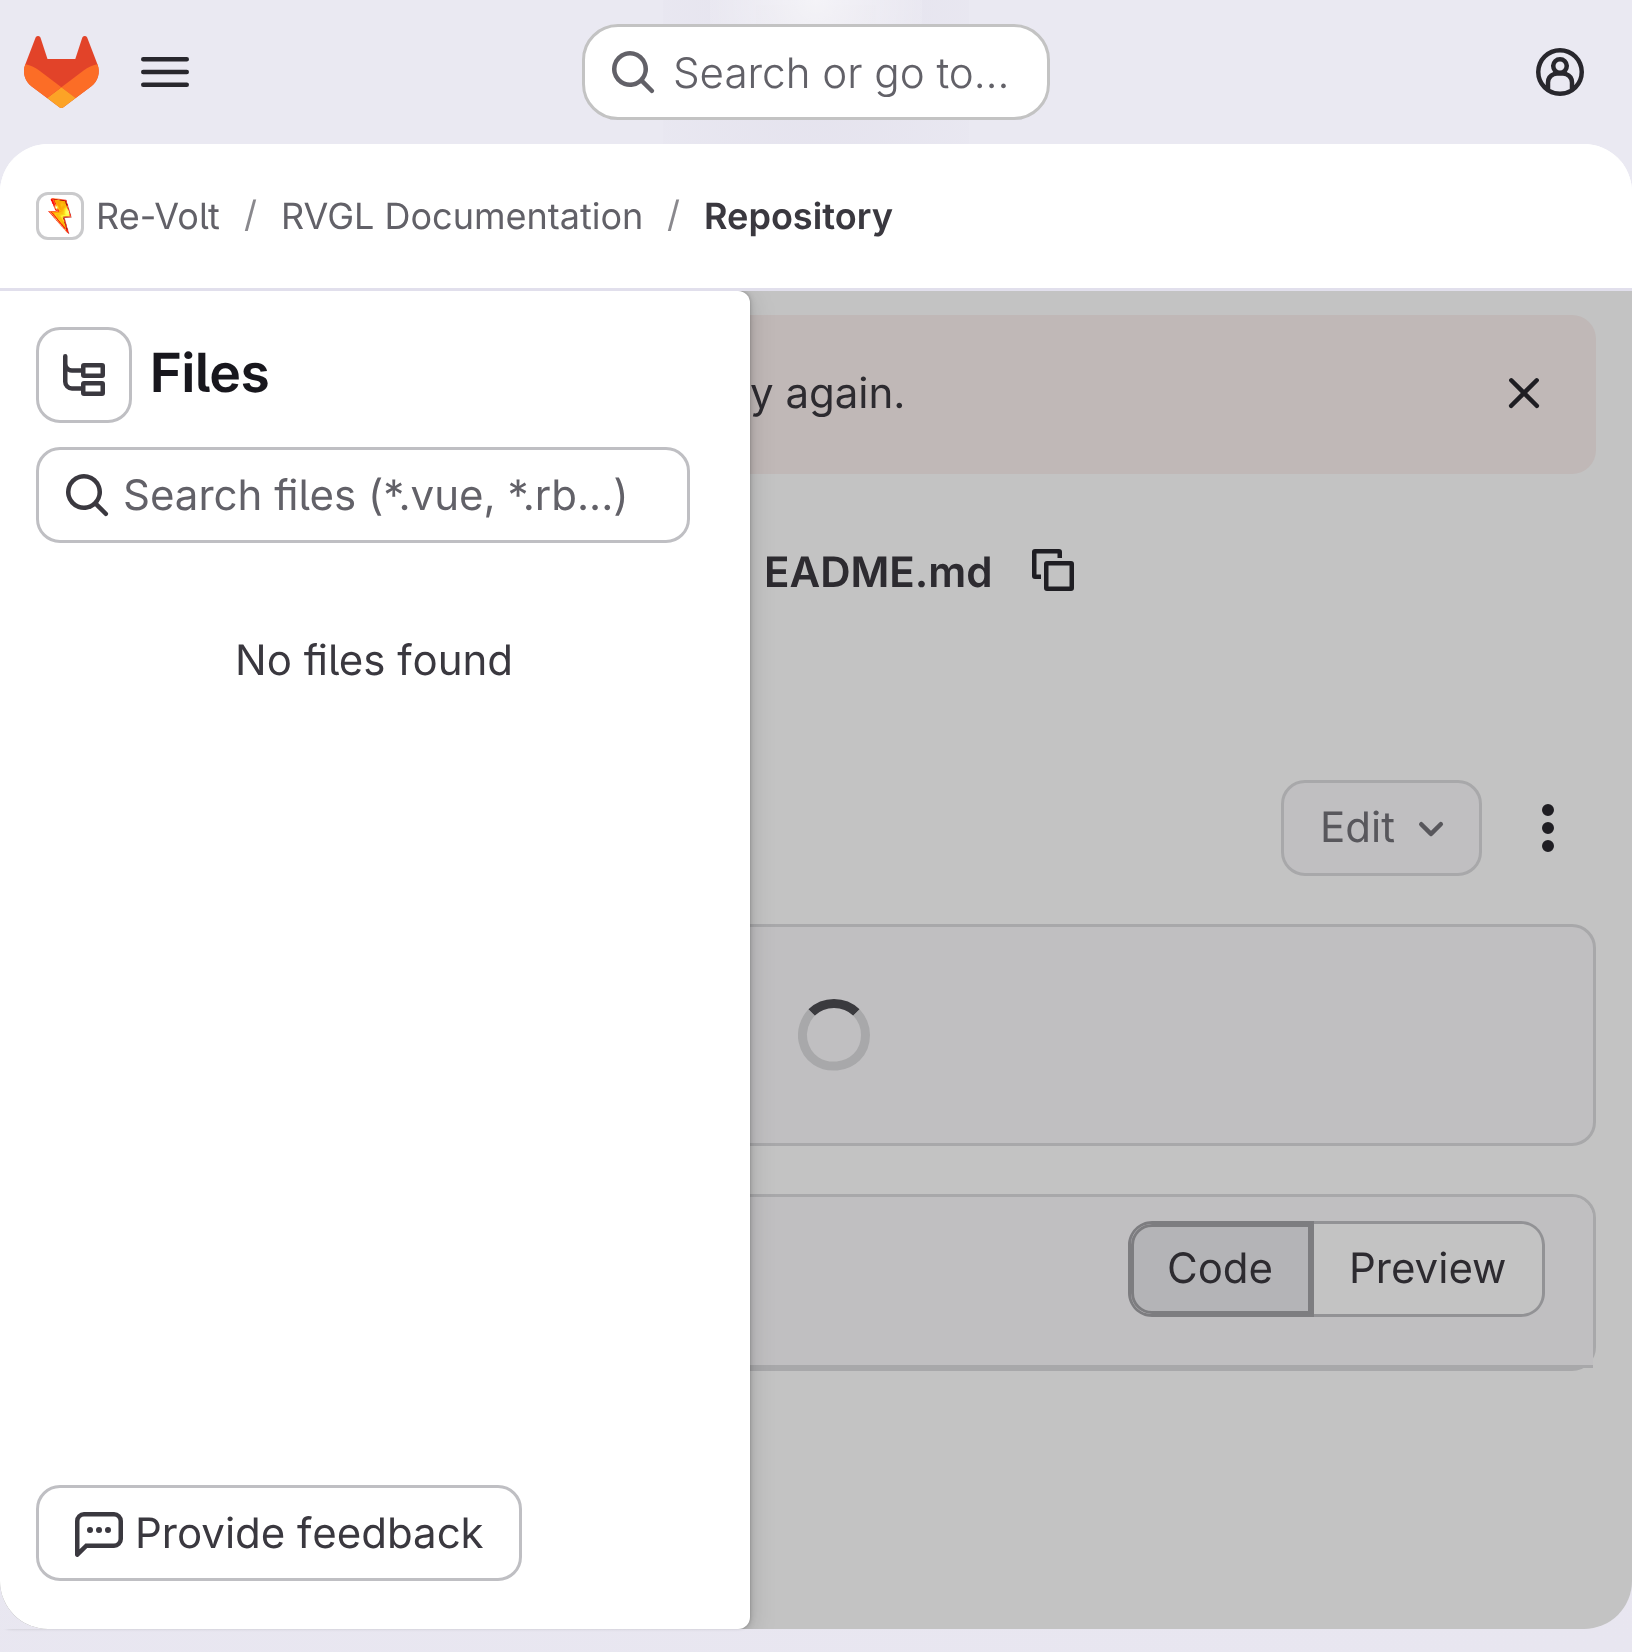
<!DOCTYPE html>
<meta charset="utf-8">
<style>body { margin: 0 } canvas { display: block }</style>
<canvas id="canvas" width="1632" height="1652"></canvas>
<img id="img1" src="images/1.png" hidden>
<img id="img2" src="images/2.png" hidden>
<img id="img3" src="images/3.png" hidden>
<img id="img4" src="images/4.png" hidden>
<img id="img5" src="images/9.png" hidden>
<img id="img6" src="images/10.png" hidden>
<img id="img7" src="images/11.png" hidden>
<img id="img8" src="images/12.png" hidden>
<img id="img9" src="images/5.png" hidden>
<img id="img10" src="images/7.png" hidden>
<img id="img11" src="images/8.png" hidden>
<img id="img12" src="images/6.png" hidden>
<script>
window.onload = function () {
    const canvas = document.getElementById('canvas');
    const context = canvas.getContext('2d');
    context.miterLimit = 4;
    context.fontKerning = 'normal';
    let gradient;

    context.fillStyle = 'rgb(255, 255, 255)';
    context.fillRect(0, 0, 1632, 1652);
    gradient = context.createLinearGradient(982, 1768, 650, -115);
    gradient.addColorStop(0, 'rgb(232, 230, 240)');
    gradient.addColorStop(0.7, 'rgb(234, 233, 242)');
    context.fillStyle = gradient;
    context.fillRect(0, 0, 1632, 1652);
    gradient = context.createRadialGradient(816, 0, 0, 816, 0, 816);
    gradient.addColorStop(0, 'rgb(228, 226, 237)');
    gradient.addColorStop(0.26, 'rgba(228, 226, 237, 0)');
    context.fillStyle = gradient;
    context.beginPath();
    context.rect(663, 0, 306, 144);
    context.save();
    context.clip();
    context.scale(1, 1653 / 816);
    context.fillRect(0, 0, 1632, 816);
    context.restore();
    gradient = context.createRadialGradient(816, 0, 0, 816, 0, 816);
    gradient.addColorStop(0, 'rgb(228, 226, 236)');
    gradient.addColorStop(0.18, 'rgba(228, 226, 236, 0)');
    context.fillStyle = gradient;
    context.beginPath();
    context.rect(756, 5, 120, 113);
    context.save();
    context.clip();
    context.scale(1, 1653 / 816);
    context.fillRect(0, 0, 1632, 816);
    context.restore();
    gradient = context.createRadialGradient(816, 0, 0, 816, 0, 1843);
    gradient.addColorStop(0, 'rgba(255, 255, 255, 0.6)');
    gradient.addColorStop(0.07, 'rgba(255, 255, 255, 0)');
    context.fillStyle = gradient;
    context.fillRect(710, 0, 212, 109);
    context.drawImage(document.getElementById('img1'), 24, 36, 75, 72);
    context.drawImage(document.getElementById('img2'), 141, 57, 48, 30);
    context.fillStyle = 'rgb(255, 255, 255)';
    context.beginPath();
    context.roundRect(582, 24, 468, 96, 36);
    context.fill();
    context.beginPath();
    context.roundRect(583.5, 25.5, 465, 93, 34.5);
    context.strokeStyle = 'rgba(5, 5, 6, 0.24)';
    context.lineWidth = 3;
    context.stroke();
    context.drawImage(document.getElementById('img3'), 612, 51, 43, 43);
    context.drawImage(document.getElementById('img4'), 1536, 48, 48, 48);
    context.beginPath();
    context.roundRect(0, 144, 1632, 1485, 48);
    context.fill();
    context.drawImage(document.getElementById('img5'), 1032, 549, 42, 42);
    context.fillStyle = 'rgb(251, 250, 253)';
    context.beginPath();
    context.roundRect(1282.5, 781.5, 198, 93, 22.5);
    context.fill();
    context.strokeStyle = 'rgb(220, 220, 222)';
    context.stroke();
    context.drawImage(document.getElementById('img6'), 1419, 821, 25, 16);
    context.drawImage(document.getElementById('img7'), 1542, 804, 12, 48);
    context.beginPath();
    context.roundRect(73.5, 925.5, 1521, 219, 22.5);
    context.fill();
    context.stroke();
    context.beginPath();
    context.moveTo(811.5, 1012.5);
    context.bezierCurveTo(824, 1000.5, 844, 1000.5, 856.5, 1012.5);
    context.strokeStyle = 'rgb(76, 75, 81)';
    context.lineWidth = 9;
    context.stroke();
    context.beginPath();
    context.moveTo(856.5, 1012.5);
    context.bezierCurveTo(862, 1018.5, 865.5, 1026.5, 865.5, 1035);
    context.bezierCurveTo(865.5, 1072.5, 810.5, 1078, 803, 1041);
    context.bezierCurveTo(801, 1031, 804.5, 1020, 811.5, 1012.5);
    context.strokeStyle = 'rgb(220, 220, 222)';
    context.stroke();
    context.beginPath();
    context.roundRect(73.5, 1195.5, 1521, 174, 22.5);
    context.lineWidth = 3;
    context.stroke();
    context.beginPath();
    context.roundRect(75, 1197, 1518, 171, [21, 21, 0, 0]);
    context.fill();
    context.fillStyle = 'rgb(220, 220, 222)';
    context.fillRect(750, 1365, 843, 3);
    context.fillStyle = 'rgb(236, 236, 239)';
    context.beginPath();
    context.roundRect(1132.5, 1225.5, 177, 87, [19.5, 0, 0, 19.5]);
    context.fill();
    context.strokeStyle = 'rgb(164, 163, 168)';
    context.stroke();
    context.fillStyle = 'rgb(164, 163, 168)';
    context.beginPath();
    context.moveTo(1152, 1221);
    context.lineTo(1311, 1221);
    context.lineTo(1311, 1317);
    context.lineTo(1152, 1317);
    context.bezierCurveTo(1139, 1317, 1128, 1306, 1128, 1293);
    context.lineTo(1128, 1245);
    context.bezierCurveTo(1128, 1232, 1139, 1221, 1152, 1221);
    context.closePath();
    context.moveTo(1152, 1224);
    context.lineTo(1311, 1224);
    context.lineTo(1311, 1314);
    context.lineTo(1152, 1314);
    context.bezierCurveTo(1140, 1314, 1131, 1305, 1131, 1293);
    context.lineTo(1131, 1245);
    context.bezierCurveTo(1131, 1233, 1140, 1224, 1152, 1224);
    context.closePath();
    context.fill('evenodd');
    context.fillStyle = 'rgb(255, 255, 255)';
    context.beginPath();
    context.roundRect(1314, 1224, 228, 90, [0, 21, 21, 0]);
    context.fill();
    context.fillStyle = 'rgb(191, 191, 195)';
    context.beginPath();
    context.moveTo(1314, 1221);
    context.lineTo(1521, 1221);
    context.bezierCurveTo(1534, 1221, 1545, 1232, 1545, 1245);
    context.lineTo(1545, 1293);
    context.bezierCurveTo(1545, 1306, 1534, 1317, 1521, 1317);
    context.lineTo(1314, 1317);
    context.closePath();
    context.moveTo(1314, 1224);
    context.lineTo(1521, 1224);
    context.bezierCurveTo(1533, 1224, 1542, 1233, 1542, 1245);
    context.lineTo(1542, 1293);
    context.bezierCurveTo(1542, 1305, 1533, 1314, 1521, 1314);
    context.lineTo(1314, 1314);
    context.closePath();
    context.fill('evenodd');
    context.fillStyle = 'rgb(164, 163, 168)';
    context.fillRect(1311, 1221, 3, 96);
    context.fillStyle = 'rgb(252, 241, 239)';
    context.beginPath();
    context.roundRect(36, 315, 1560, 159, 24);
    context.fill();
    context.drawImage(document.getElementById('img8'), 1508, 378, 32, 31);
    context.font = '300 42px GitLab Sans';
    context.fillStyle = 'rgb(98, 97, 104)';
    context.fillText('Search or go to…', 673, 88);
    context.font = '600 42px GitLab Sans';
    context.fillStyle = 'rgb(58, 56, 63)';
    context.fillText('EADME.md', 764, 587);
    context.font = '42px GitLab Sans';
    context.fillStyle = 'rgb(115, 114, 120)';
    context.fillText('Edit', 1320, 842);
    context.fillStyle = 'rgb(58, 56, 63)';
    context.fillText('Code', 1167, 1283);
    context.fillText('Preview', 1349, 1283);
    context.fillText('y again.', 750, 408);
    context.fillStyle = 'rgba(5, 5, 6, 0.24)';
    context.beginPath();
    context.roundRect(0, 291, 1632, 1338, [0, 0, 48, 48]);
    context.fill();
    context.save();
    context.beginPath();
    context.moveTo(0, 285);
    context.lineTo(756, 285);
    context.lineTo(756, 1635);
    context.lineTo(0, 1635);
    context.closePath();
    context.moveTo(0, 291);
    context.lineTo(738, 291);
    context.bezierCurveTo(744.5, 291, 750, 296.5, 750, 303);
    context.lineTo(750, 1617);
    context.bezierCurveTo(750, 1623.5, 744.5, 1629, 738, 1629);
    context.lineTo(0, 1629);
    context.closePath();
    context.clip('evenodd');
    context.fillStyle = 'rgba(5, 5, 6, 0.16)';
    context.filter = 'blur(1.5px)';
    context.beginPath();
    context.roundRect(0, 291, 750, 1338, 12);
    context.fill();
    context.filter = 'none';
    context.restore();
    context.save();
    context.beginPath();
    context.roundRect(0, 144, 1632, 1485, 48);
    context.clip();
    context.fillStyle = 'rgba(5, 5, 6, 0.16)';
    context.filter = 'blur(3px)';
    context.beginPath();
    context.roundRect(0, 291, 750, 1338, 12);
    context.fill();
    context.filter = 'none';
    context.filter = 'blur(12px)';
    context.beginPath();
    context.roundRect(0, 297, 750, 1338, 12);
    context.fill();
    context.filter = 'none';
    context.restore();
    context.fillStyle = 'rgb(255, 255, 255)';
    context.beginPath();
    context.roundRect(0, 144, 1632, 147, [48, 48, 0, 0]);
    context.fill();
    context.font = '600 36px GitLab Sans';
    context.fillStyle = 'rgb(58, 56, 63)';
    context.fillText('Repository', 704, 229);
    context.font = '36px GitLab Sans';
    context.fillStyle = 'rgb(137, 136, 141)';
    context.fillText('/', 667, 227);
    context.fillStyle = 'rgb(98, 97, 104)';
    context.fillText('RVGL Documentation', 281, 229);
    context.fillStyle = 'rgb(137, 136, 141)';
    context.fillText('/', 244, 227);
    context.fillStyle = 'rgb(98, 97, 104)';
    context.fillText('Re-Volt', 96, 229);
    context.beginPath();
    context.roundRect(37.5, 193.5, 45, 45, 10.5);
    context.strokeStyle = 'rgb(220, 220, 222)';
    context.stroke();
    context.drawImage(document.getElementById('img9'), 48, 198, 24, 36);
    context.beginPath();
    context.roundRect(37.5, 193.5, 45, 45, 10.5);
    context.strokeStyle = 'rgba(5, 5, 6, 0.08)';
    context.stroke();
    context.fillStyle = 'rgb(225, 223, 236)';
    context.fillRect(0, 288, 1632, 3);
    context.fillStyle = 'rgb(255, 255, 255)';
    context.beginPath();
    context.roundRect(0, 291, 750, 1338, [0, 12, 12, 48]);
    context.fill();
    context.beginPath();
    context.roundRect(37.5, 448.5, 651, 93, 22.5);
    context.strokeStyle = 'rgb(191, 191, 195)';
    context.stroke();
    context.font = '42px GitLab Sans';
    context.fillStyle = 'rgb(98, 97, 104)';
    context.fillText('Search files (*.vue, *.rb...)', 123, 510);
    context.drawImage(document.getElementById('img10'), 66, 474, 43, 43);
    context.beginPath();
    context.roundRect(37.5, 1486.5, 483, 93, 22.5);
    context.stroke();
    context.fillStyle = 'rgb(58, 56, 63)';
    context.fillText('Provide feedback', 135, 1548);
    context.drawImage(document.getElementById('img11'), 75, 1512, 48, 45);
    context.beginPath();
    context.roundRect(37.5, 328.5, 93, 93, 22.5);
    context.stroke();
    context.drawImage(document.getElementById('img12'), 63, 354, 42, 42);
    context.fillText('No files found', 235, 675);
    context.font = '600 54px "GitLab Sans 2"';
    context.fillStyle = 'rgb(24, 23, 29)';
    context.fillText('Files', 150, 392);
};
</script>
